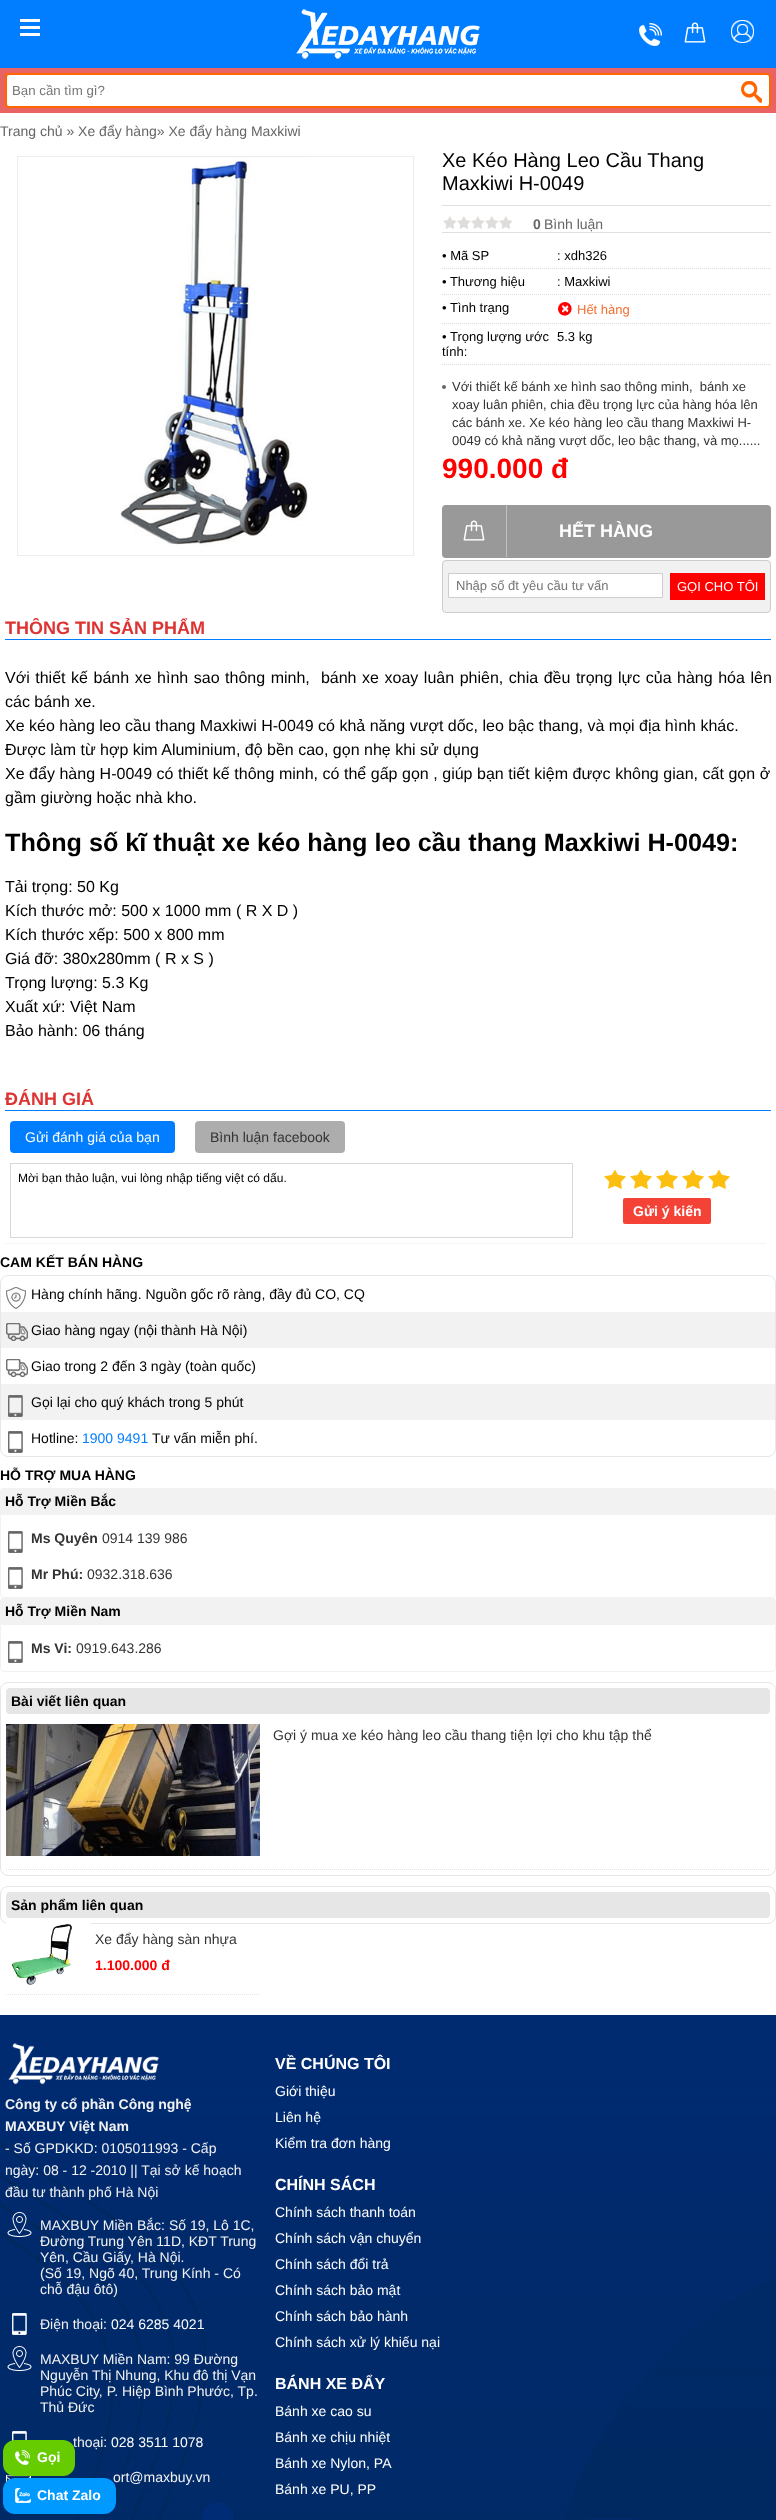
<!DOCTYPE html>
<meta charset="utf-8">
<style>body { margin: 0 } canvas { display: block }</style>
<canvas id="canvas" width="776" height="2520"></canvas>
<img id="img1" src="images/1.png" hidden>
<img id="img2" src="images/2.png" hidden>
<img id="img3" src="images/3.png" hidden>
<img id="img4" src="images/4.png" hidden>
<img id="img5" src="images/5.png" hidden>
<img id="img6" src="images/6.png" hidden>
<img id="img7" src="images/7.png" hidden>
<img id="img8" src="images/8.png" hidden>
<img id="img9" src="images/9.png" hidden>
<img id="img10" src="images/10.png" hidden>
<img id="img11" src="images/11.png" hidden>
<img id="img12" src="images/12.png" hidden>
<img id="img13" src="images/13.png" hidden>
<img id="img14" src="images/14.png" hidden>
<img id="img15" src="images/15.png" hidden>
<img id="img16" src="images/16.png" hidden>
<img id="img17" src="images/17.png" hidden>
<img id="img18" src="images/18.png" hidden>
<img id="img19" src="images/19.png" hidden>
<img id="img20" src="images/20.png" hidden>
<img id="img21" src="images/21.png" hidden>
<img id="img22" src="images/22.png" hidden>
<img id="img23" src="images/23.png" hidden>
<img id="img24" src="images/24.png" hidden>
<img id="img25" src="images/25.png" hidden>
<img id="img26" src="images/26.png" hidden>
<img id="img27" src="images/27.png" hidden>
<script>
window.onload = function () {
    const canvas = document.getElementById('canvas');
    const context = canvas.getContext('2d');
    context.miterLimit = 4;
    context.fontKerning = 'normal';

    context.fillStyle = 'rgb(255, 255, 255)';
    context.fillRect(0, 0, 776, 2520);
    context.fillStyle = 'rgb(0, 126, 255)';
    context.fillRect(0, 0, 776, 68);
    context.drawImage(document.getElementById('img1'), 20, 19, 20, 17);
    context.drawImage(document.getElementById('img2'), 296, 9, 184, 50);
    context.drawImage(document.getElementById('img3'), 639, 23, 23, 23);
    context.drawImage(document.getElementById('img4'), 684, 22, 22, 21);
    context.drawImage(document.getElementById('img5'), 731, 20, 23, 23);
    context.fillStyle = 'rgb(233, 99, 99)';
    context.fillRect(0, 68, 776, 45);
    context.fillStyle = 'rgb(255, 255, 255)';
    context.beginPath();
    context.roundRect(6, 74, 764, 33, 3);
    context.fill();
    context.strokeStyle = 'rgb(255, 102, 0)';
    context.lineWidth = 2;
    context.stroke();
    context.drawImage(document.getElementById('img6'), 741, 81, 21, 22);
    context.strokeStyle = 'rgb(237, 237, 237)';
    context.lineWidth = 1;
    context.strokeRect(17.5, 156.5, 396, 399);
    context.drawImage(document.getElementById('img7'), 120, 157, 188, 389);
    context.fillStyle = 'rgb(223, 223, 223)';
    context.fillRect(442, 205, 329, 1);
    context.fillRect(442, 232, 329, 1);
    context.drawImage(document.getElementById('img8'), 443, 216, 69, 13);
    context.beginPath();
    context.moveTo(442, 268.5);
    context.lineTo(771, 268.5);
    context.strokeStyle = 'rgb(221, 221, 221)';
    context.setLineDash([1, 1]);
    context.stroke();
    context.beginPath();
    context.moveTo(442, 294.5);
    context.lineTo(771, 294.5);
    context.stroke();
    context.beginPath();
    context.moveTo(442, 323.5);
    context.lineTo(771, 323.5);
    context.stroke();
    context.drawImage(document.getElementById('img9'), 558, 302, 14, 14);
    context.beginPath();
    context.moveTo(442, 364.5);
    context.lineTo(771, 364.5);
    context.stroke();
    context.fillStyle = 'rgb(102, 102, 102)';
    context.beginPath();
    context.arc(444, 387, 2, 0, 2 * Math.PI);
    context.fill();
    context.fillStyle = 'rgb(153, 153, 153)';
    context.beginPath();
    context.roundRect(442, 505, 329, 53, 4);
    context.fill();
    context.fillStyle = 'rgb(192, 192, 192)';
    context.fillRect(506, 505, 1, 52);
    context.drawImage(document.getElementById('img10'), 463, 520, 22, 21);
    context.fillStyle = 'rgb(241, 241, 241)';
    context.beginPath();
    context.roundRect(442.5, 560.5, 328, 52, 3.5);
    context.fill();
    context.strokeStyle = 'rgb(205, 205, 205)';
    context.setLineDash([]);
    context.stroke();
    context.fillStyle = 'rgb(255, 255, 255)';
    context.beginPath();
    context.rect(448.5, 573.5, 214, 24);
    context.fill();
    context.stroke();
    context.fillStyle = 'rgb(255, 0, 0)';
    context.fillRect(670, 573, 95, 27);
    context.fillStyle = 'rgb(0, 126, 255)';
    context.fillRect(5, 639, 766, 1);
    context.fillRect(5, 1110, 766, 1);
    context.beginPath();
    context.roundRect(10, 1121, 165, 32, 4);
    context.fill();
    context.fillStyle = 'rgb(173, 173, 173)';
    context.beginPath();
    context.roundRect(195, 1121, 150, 32, 4);
    context.fill();
    context.fillStyle = 'rgb(244, 244, 244)';
    context.fillRect(5, 1243, 761, 1);
    context.strokeStyle = 'rgb(216, 216, 216)';
    context.strokeRect(10.5, 1163.5, 562, 74);
    context.drawImage(document.getElementById('img11'), 604, 1169, 22, 20);
    context.drawImage(document.getElementById('img11'), 630, 1169, 22, 20);
    context.drawImage(document.getElementById('img11'), 656, 1169, 22, 20);
    context.drawImage(document.getElementById('img11'), 682, 1169, 22, 20);
    context.drawImage(document.getElementById('img11'), 708, 1169, 22, 20);
    context.fillStyle = 'rgb(244, 67, 54)';
    context.beginPath();
    context.roundRect(623, 1198, 88, 26, 2);
    context.fill();
    context.beginPath();
    context.roundRect(0.5, 1275.5, 775, 181, 7.5);
    context.strokeStyle = 'rgb(229, 231, 235)';
    context.stroke();
    context.drawImage(document.getElementById('img12'), 6, 1287, 20, 22);
    context.fillStyle = 'rgb(242, 242, 242)';
    context.fillRect(1, 1312, 774, 36);
    context.drawImage(document.getElementById('img13'), 6, 1323, 22, 18);
    context.drawImage(document.getElementById('img14'), 6, 1359, 22, 18);
    context.fillRect(1, 1384, 774, 36);
    context.drawImage(document.getElementById('img15'), 8, 1395, 15, 22);
    context.drawImage(document.getElementById('img16'), 8, 1431, 15, 22);
    context.beginPath();
    context.roundRect(0, 1488, 776, 26, [4, 4, 0, 0]);
    context.fill();
    context.beginPath();
    context.roundRect(0.5, 1514.5, 775, 83, [0, 0, 3.5, 3.5]);
    context.strokeStyle = 'rgb(242, 242, 242)';
    context.stroke();
    context.drawImage(document.getElementById('img16'), 8, 1531, 15, 22);
    context.drawImage(document.getElementById('img16'), 8, 1567, 15, 22);
    context.beginPath();
    context.roundRect(0, 1598, 776, 26, [4, 4, 0, 0]);
    context.fill();
    context.beginPath();
    context.roundRect(0.5, 1624.5, 775, 47, [0, 0, 3.5, 3.5]);
    context.stroke();
    context.drawImage(document.getElementById('img16'), 8, 1641, 15, 22);
    context.beginPath();
    context.roundRect(0.5, 1682.5, 775, 193, 7.5);
    context.strokeStyle = 'rgb(230, 230, 230)';
    context.stroke();
    context.fillStyle = 'rgb(230, 230, 230)';
    context.beginPath();
    context.roundRect(6, 1688, 764, 26, 4);
    context.fill();
    context.beginPath();
    context.moveTo(6, 1869.5);
    context.lineTo(770, 1869.5);
    context.strokeStyle = 'rgb(226, 226, 226)';
    context.setLineDash([1, 1]);
    context.stroke();
    context.drawImage(document.getElementById('img17'), 6, 1724, 254, 132);
    context.beginPath();
    context.roundRect(0.5, 1886.5, 775, 37, 7.5);
    context.strokeStyle = 'rgb(230, 230, 230)';
    context.setLineDash([]);
    context.stroke();
    context.beginPath();
    context.roundRect(6, 1892, 764, 26, 4);
    context.fill();
    context.beginPath();
    context.moveTo(6, 1994.5);
    context.lineTo(260, 1994.5);
    context.setLineDash([1, 1]);
    context.stroke();
    context.drawImage(document.getElementById('img18'), 6, 1923, 85, 62);
    context.drawImage(document.getElementById('img19'), 0, 2015, 776, 505);
    context.drawImage(document.getElementById('img20'), 8, 2043, 151, 42);
    context.drawImage(document.getElementById('img21'), 7, 2212, 25, 25);
    context.drawImage(document.getElementById('img22'), 12, 2313, 15, 22);
    context.drawImage(document.getElementById('img23'), 7, 2346, 25, 25);
    context.drawImage(document.getElementById('img24'), 12, 2431, 15, 10);
    context.drawImage(document.getElementById('img25'), 6, 2475, 25, 8);
    context.font = '13.25px Liberation Sans';
    context.fillStyle = 'rgb(117, 117, 117)';
    context.fillText('Bạn cần tìm gì?', 12, 95);
    context.font = '14px Liberation Sans';
    context.fillStyle = 'rgb(102, 102, 102)';
    context.fillText('Trang chủ » Xe đẩy hàng» Xe đẩy hàng Maxkiwi', 0, 136);
    context.font = '20px Liberation Sans';
    context.fillStyle = 'rgb(0, 0, 0)';
    context.fillText('Xe Kéo Hàng Leo Cầu Thang', 442, 167);
    context.fillText('Maxkiwi H-0049', 442, 190);
    context.font = 'bold 14px Liberation Sans';
    context.fillStyle = 'rgb(102, 102, 102)';
    context.fillText('0', 533, 229);
    context.font = '14px Liberation Sans';
    context.fillText('Bình luận', 544, 229);
    context.font = '13px Liberation Sans';
    context.fillStyle = 'rgb(0, 0, 0)';
    context.fillText('• Mã SP', 442, 260);
    context.fillText(': xdh326', 557, 260);
    context.fillText('• Thương hiệu', 442, 286);
    context.fillText(': Maxkiwi', 557, 286);
    context.fillText('• Tình trạng', 442, 312);
    context.fillStyle = 'rgb(243, 112, 47)';
    context.fillText('Hết hàng', 577, 314);
    context.fillStyle = 'rgb(0, 0, 0)';
    context.fillText('• Trọng lượng ước', 442, 341);
    context.fillText('tính:', 442, 356);
    context.fillText('5.3 kg', 557, 341);
    context.fillStyle = 'rgb(51, 51, 51)';
    context.fillText('Với thiết kế bánh xe hình sao thông minh,  bánh xe', 452, 391);
    context.fillText('xoay luân phiên, chia đều trọng lực của hàng hóa lên', 452, 409);
    context.fillText('các bánh xe. Xe kéo hàng leo cầu thang Maxkiwi H-', 452, 427);
    context.fillText('0049 có khả năng vượt dốc, leo bậc thang, và mọ......', 452, 445);
    context.font = 'bold 28px Liberation Sans';
    context.fillStyle = 'rgb(255, 0, 0)';
    context.fillText('990.000 đ', 442, 478);
    context.font = 'bold 18px Liberation Sans';
    context.fillStyle = 'rgb(255, 255, 255)';
    context.fillText('HẾT HÀNG', 559, 537);
    context.font = '13px Liberation Sans';
    context.fillStyle = 'rgb(117, 117, 117)';
    context.fillText('Nhập số đt yêu cầu tư vấn', 456, 590);
    context.fillStyle = 'rgb(255, 255, 255)';
    context.fillText('GỌI CHO TÔI', 677, 591);
    context.font = 'bold 18px Liberation Sans';
    context.fillStyle = 'rgb(221, 51, 51)';
    context.fillText('THÔNG TIN SẢN PHẨM', 5, 634);
    context.wordSpacing = '1.1px';
    context.font = '16px Liberation Sans';
    context.fillStyle = 'rgb(0, 0, 0)';
    context.fillText('Với thiết kế bánh xe hình sao thông minh,  bánh xe xoay luân phiên, chia đều trọng lực của hàng hóa lên', 5, 683);
    context.wordSpacing = '0px';
    context.fillText('các bánh xe.', 5, 707);
    context.fillText('Xe kéo hàng leo cầu thang Maxkiwi H-0049 có khả năng vượt dốc, leo bậc thang, và mọi địa hình khác.', 5, 731);
    context.fillText('Được làm từ hợp kim Aluminium, độ bền cao, gọn nhẹ khi sử dụng', 5, 755);
    context.wordSpacing = '0.1px';
    context.fillText('Xe đẩy hàng H-0049 có thiết kế thông minh, có thể gấp gọn , giúp bạn tiết kiệm được không gian, cất gọn ở', 5, 779);
    context.wordSpacing = '0px';
    context.fillText('gầm giường hoặc nhà kho.', 5, 803);
    context.font = 'bold 25.2px Liberation Sans';
    context.fillText('Thông số kĩ thuật xe kéo hàng leo cầu thang Maxkiwi H-0049:', 5, 851);
    context.font = '16px Liberation Sans';
    context.fillText('Tải trọng: 50 Kg', 5, 892);
    context.fillText('Kích thước mở: 500 x 1000 mm ( R X D )', 5, 916);
    context.fillText('Kích thước xếp: 500 x 800 mm', 5, 940);
    context.fillText('Giá đỡ: 380x280mm ( R x S )', 5, 964);
    context.fillText('Trọng lượng: 5.3 Kg', 5, 988);
    context.fillText('Xuất xứ: Việt Nam', 5, 1012);
    context.fillText('Bảo hành: 06 tháng', 5, 1036);
    context.font = 'bold 18px Liberation Sans';
    context.fillStyle = 'rgb(221, 51, 51)';
    context.fillText('ĐÁNH GIÁ', 5, 1105);
    context.font = '14px Liberation Sans';
    context.fillStyle = 'rgb(255, 255, 255)';
    context.fillText('Gửi đánh giá của bạn', 25, 1142);
    context.fillStyle = 'rgb(51, 51, 51)';
    context.fillText('Bình luận facebook', 210, 1142);
    context.font = '12px Liberation Sans';
    context.fillStyle = 'rgb(0, 0, 0)';
    context.fillText('Mời bạn thảo luận, vui lòng nhập tiếng việt có dấu.', 18, 1182);
    context.font = 'bold 14px Liberation Sans';
    context.fillStyle = 'rgb(255, 255, 255)';
    context.fillText('Gửi ý kiến', 633, 1216);
    context.fillStyle = 'rgb(0, 0, 0)';
    context.fillText('CAM KẾT BÁN HÀNG', 0, 1267);
    context.font = '14px Liberation Sans';
    context.fillText('Hàng chính hãng. Nguồn gốc rõ ràng, đầy đủ CO, CQ', 31, 1299);
    context.fillText('Giao hàng ngay (nội thành Hà Nội)', 31, 1335);
    context.fillText('Giao trong 2 đến 3 ngày (toàn quốc)', 31, 1371);
    context.fillText('Gọi lại cho quý khách trong 5 phút', 31, 1407);
    context.fillText('Hotline:', 31, 1443);
    context.fillStyle = 'rgb(0, 126, 255)';
    context.fillText('1900 9491', 82, 1443);
    context.fillStyle = 'rgb(0, 0, 0)';
    context.fillText('Tư vấn miễn phí.', 152, 1443);
    context.font = 'bold 14px Liberation Sans';
    context.fillText('HỖ TRỢ MUA HÀNG', 0, 1480);
    context.fillText('Hỗ Trợ Miền Bắc', 5, 1506);
    context.fillStyle = 'rgb(51, 51, 51)';
    context.fillText('Ms Quyên', 31, 1543);
    context.font = '14px Liberation Sans';
    context.fillText('0914 139 986', 102, 1543);
    context.font = 'bold 14px Liberation Sans';
    context.fillText('Mr Phú:', 31, 1579);
    context.font = '14px Liberation Sans';
    context.fillText('0932.318.636', 87, 1579);
    context.font = 'bold 14px Liberation Sans';
    context.fillStyle = 'rgb(0, 0, 0)';
    context.fillText('Hỗ Trợ Miền Nam', 5, 1616);
    context.fillStyle = 'rgb(51, 51, 51)';
    context.fillText('Ms Vi:', 31, 1653);
    context.font = '14px Liberation Sans';
    context.fillText('0919.643.286', 76, 1653);
    context.font = 'bold 14px Liberation Sans';
    context.fillStyle = 'rgb(0, 0, 0)';
    context.fillText('Bài viết liên quan', 11, 1706);
    context.font = '14px Liberation Sans';
    context.fillStyle = 'rgb(51, 51, 51)';
    context.fillText('Gợi ý mua xe kéo hàng leo cầu thang tiện lợi cho khu tập thể', 273, 1740);
    context.font = 'bold 14px Liberation Sans';
    context.fillStyle = 'rgb(0, 0, 0)';
    context.fillText('Sản phẩm liên quan', 11, 1910);
    context.font = '14px Liberation Sans';
    context.fillStyle = 'rgb(51, 51, 51)';
    context.fillText('Xe đẩy hàng sàn nhựa', 95, 1944);
    context.font = 'bold 14px Liberation Sans';
    context.fillStyle = 'rgb(255, 0, 0)';
    context.fillText('1.100.000 đ', 95, 1970);
    context.fillStyle = 'rgb(242, 242, 243)';
    context.fillText('Công ty cổ phần Công nghệ', 5, 2109);
    context.fillText('MAXBUY Việt Nam', 5, 2131);
    context.font = '14px Liberation Sans';
    context.fillText('- Số GPDKKD: 0105011993 - Cấp', 5, 2153);
    context.fillText('ngày: 08 - 12 -2010 || Tại sở kế hoạch', 5, 2175);
    context.fillText('đầu tư thành phố Hà Nội', 5, 2197);
    context.fillText('MAXBUY Miền Bắc: Số 19, Lô 1C,', 40, 2230);
    context.fillText('Đường Trung Yên 11D, KĐT Trung', 40, 2246);
    context.fillText('Yên, Cầu Giấy, Hà Nội.', 40, 2262);
    context.fillText('(Số 19, Ngõ 40, Trung Kính - Có', 40, 2278);
    context.fillText('chỗ đậu ôtô)', 40, 2294);
    context.fillText('Điện thoại:', 40, 2329);
    context.fillStyle = 'rgb(255, 255, 255)';
    context.fillText('024 6285 4021', 111, 2329);
    context.fillStyle = 'rgb(242, 242, 243)';
    context.fillText('MAXBUY Miền Nam: 99 Đường', 40, 2364);
    context.fillText('Nguyễn Thị Nhung, Khu đô thị Vạn', 40, 2380);
    context.fillText('Phúc City, P. Hiệp Bình Phước, Tp.', 40, 2396);
    context.fillText('Thủ Đức', 40, 2412);
    context.fillText('thoại:', 73, 2447);
    context.fillStyle = 'rgb(255, 255, 255)';
    context.fillText('028 3511 1078', 111, 2447);
    context.fillStyle = 'rgb(242, 242, 243)';
    context.fillText('ort@maxbuy.vn', 113, 2482);
    context.font = 'bold 16px Liberation Sans';
    context.fillStyle = 'rgb(255, 255, 255)';
    context.fillText('VỀ CHÚNG TÔI', 275, 2069);
    context.font = '14px Liberation Sans';
    context.fillText('Giới thiệu', 275, 2096);
    context.fillText('Liên hệ', 275, 2122);
    context.fillText('Kiểm tra đơn hàng', 275, 2148);
    context.font = 'bold 16px Liberation Sans';
    context.fillText('CHÍNH SÁCH', 275, 2190);
    context.font = '14px Liberation Sans';
    context.fillText('Chính sách thanh toán', 275, 2217);
    context.fillText('Chính sách vận chuyển', 275, 2243);
    context.fillText('Chính sách đổi trả', 275, 2269);
    context.fillText('Chính sách bảo mật', 275, 2295);
    context.fillText('Chính sách bảo hành', 275, 2321);
    context.fillText('Chính sách xử lý khiếu nại', 275, 2347);
    context.font = 'bold 16px Liberation Sans';
    context.fillText('BÁNH XE ĐẨY', 275, 2389);
    context.font = '14px Liberation Sans';
    context.fillText('Bánh xe cao su', 275, 2416);
    context.fillText('Bánh xe chịu nhiệt', 275, 2442);
    context.fillText('Bánh xe Nylon, PA', 275, 2468);
    context.fillText('Bánh xe PU, PP', 275, 2494);
    context.fillStyle = 'rgb(102, 204, 0)';
    context.beginPath();
    context.roundRect(3, 2440, 72, 36, 12);
    context.fill();
    context.drawImage(document.getElementById('img26'), 15, 2450, 15, 15);
    context.font = 'bold 14px Liberation Sans';
    context.fillStyle = 'rgb(255, 255, 255)';
    context.fillText('Gọi', 37, 2462);
    context.fillStyle = 'rgb(0, 153, 255)';
    context.beginPath();
    context.roundRect(3, 2478, 113, 36, 12);
    context.fill();
    context.drawImage(document.getElementById('img27'), 15, 2488, 16, 15);
    context.fillStyle = 'rgb(255, 255, 255)';
    context.fillText('Chat Zalo', 37, 2500);
};
</script>
